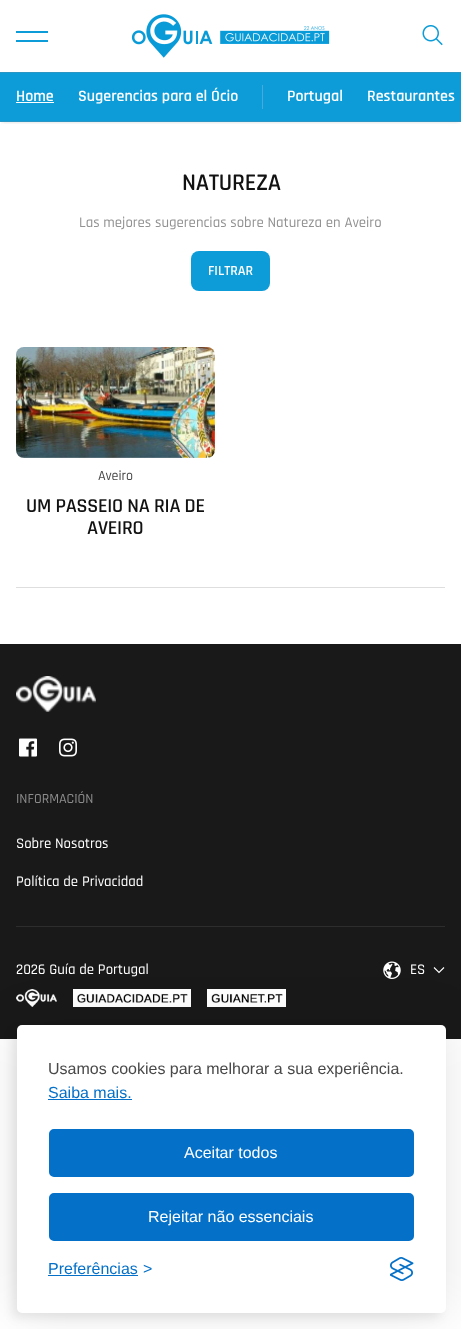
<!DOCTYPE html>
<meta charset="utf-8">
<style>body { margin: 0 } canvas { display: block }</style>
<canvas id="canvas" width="461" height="1329"></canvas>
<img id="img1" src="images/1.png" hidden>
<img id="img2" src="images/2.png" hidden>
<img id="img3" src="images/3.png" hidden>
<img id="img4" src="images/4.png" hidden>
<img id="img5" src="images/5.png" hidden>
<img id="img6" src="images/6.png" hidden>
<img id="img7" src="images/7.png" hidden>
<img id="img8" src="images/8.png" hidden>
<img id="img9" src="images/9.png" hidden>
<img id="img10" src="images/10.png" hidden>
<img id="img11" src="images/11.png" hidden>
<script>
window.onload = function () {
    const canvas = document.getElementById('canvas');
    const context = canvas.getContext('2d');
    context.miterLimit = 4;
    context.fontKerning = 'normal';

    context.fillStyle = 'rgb(255, 255, 255)';
    context.fillRect(0, 0, 461, 1329);
    context.save();
    context.beginPath();
    context.rect(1, 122, 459, 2);
    context.clip();
    context.fillStyle = 'rgba(0, 0, 0, 0.15)';
    context.filter = 'blur(2px)';
    context.beginPath();
    context.rect(2, 4, 457, 118);
    context.fill();
    context.filter = 'none';
    context.restore();
    context.fillStyle = 'rgb(13, 156, 216)';
    context.fillRect(16, 31, 32, 2);
    context.fillRect(16, 40, 32, 2);
    context.drawImage(document.getElementById('img1'), 131, 14, 199, 44);
    context.drawImage(document.getElementById('img2'), 422, 25, 21, 21);
    context.fillRect(0, 73, 461, 48);
    context.fillStyle = 'rgb(43, 150, 195)';
    context.fillRect(0, 72, 461, 1);
    context.fillRect(0, 121, 461, 1);
    context.fillStyle = 'rgb(255, 255, 255)';
    context.fillRect(16, 102, 38, 1);
    context.fillStyle = 'rgb(66, 173, 218)';
    context.fillRect(262, 85, 1, 24);
    context.fillStyle = 'rgb(13, 156, 216)';
    context.beginPath();
    context.roundRect(191, 251, 79, 40, 8);
    context.fill();
    context.fillStyle = 'rgb(247, 247, 247)';
    context.beginPath();
    context.roundRect(16, 347, 199, 111, 8);
    context.fill();
    context.drawImage(document.getElementById('img3'), 16, 347, 199, 111);
    context.fillStyle = 'rgb(222, 222, 222)';
    context.fillRect(16, 587, 429, 1);
    context.fillStyle = 'rgb(25, 25, 25)';
    context.fillRect(0, 644, 461, 395);
    context.drawImage(document.getElementById('img4'), 16, 676, 80, 36);
    context.drawImage(document.getElementById('img5'), 19, 738, 18, 19);
    context.drawImage(document.getElementById('img6'), 59, 738, 18, 19);
    context.fillStyle = 'rgb(45, 45, 45)';
    context.fillRect(16, 926, 429, 1);
    context.drawImage(document.getElementById('img7'), 16, 989, 41, 18);
    context.drawImage(document.getElementById('img8'), 73, 989, 118, 18);
    context.drawImage(document.getElementById('img9'), 207, 989, 79, 18);
    context.drawImage(document.getElementById('img10'), 383, 961, 18, 18);
    context.beginPath();
    context.moveTo(434, 967.5);
    context.lineTo(439, 972.5);
    context.lineTo(444, 967.5);
    context.strokeStyle = 'rgb(255, 255, 255)';
    context.lineWidth = 1.1;
    context.stroke();
    context.fillStyle = 'rgba(0, 0, 0, 0.1)';
    context.filter = 'blur(25px)';
    context.beginPath();
    context.roundRect(17, 1025, 429, 288, 5);
    context.fill();
    context.filter = 'none';
    context.fillStyle = 'rgba(0, 0, 0, 0.07)';
    context.filter = 'blur(5px)';
    context.beginPath();
    context.roundRect(12, 1030, 429, 288, 5);
    context.fill();
    context.filter = 'none';
    context.fillStyle = 'rgb(255, 255, 255)';
    context.beginPath();
    context.roundRect(17, 1025, 429, 288, 5);
    context.fill();
    context.fillStyle = 'rgb(4, 112, 200)';
    context.fillRect(48, 1099, 84, 1);
    context.beginPath();
    context.roundRect(50, 1130, 363, 46, 4);
    context.fill();
    context.strokeStyle = 'rgb(4, 112, 200)';
    context.lineWidth = 2;
    context.stroke();
    context.beginPath();
    context.roundRect(50, 1194, 363, 46, 4);
    context.fill();
    context.stroke();
    context.fillRect(48, 1275, 90, 1);
    context.drawImage(document.getElementById('img11'), 390, 1257, 24, 24);
    context.font = '600 16px Rajdhani';
    context.fillStyle = 'rgb(255, 255, 255)';
    context.fillText('Home', 16, 101);
    context.fillText('Sugerencias para el Ócio', 78, 101);
    context.fillText('Portugal', 287, 101);
    context.fillText('Restaurantes', 367, 101);
    context.letterSpacing = '-0.25px';
    context.font = '600 24px Rajdhani';
    context.fillStyle = 'rgb(18, 18, 18)';
    context.fillText('NATUREZA', 182, 190);
    context.letterSpacing = '0px';
    context.font = '500 14.8px Rajdhani';
    context.fillStyle = 'rgb(146, 146, 146)';
    context.fillText('Las mejores sugerencias sobre Natureza en Aveiro', 79, 227);
    context.font = '600 14px Rajdhani';
    context.fillStyle = 'rgb(255, 255, 255)';
    context.fillText('FILTRAR', 208, 275);
    context.font = '500 14px Rajdhani';
    context.fillStyle = 'rgb(73, 73, 73)';
    context.fillText('Aveiro', 98, 480);
    context.letterSpacing = '-0.25px';
    context.font = '600 20px Rajdhani';
    context.fillStyle = 'rgb(18, 18, 18)';
    context.fillText('UM PASSEIO NA RIA DE', 26, 512);
    context.fillText('AVEIRO', 87, 534);
    context.letterSpacing = '0px';
    context.font = '500 14px Rajdhani';
    context.fillStyle = 'rgb(140, 140, 140)';
    context.fillText('INFORMACIÓN', 16, 803);
    context.font = '500 14.8px Rajdhani';
    context.fillStyle = 'rgb(255, 255, 255)';
    context.fillText('Sobre Nosotros', 16, 848);
    context.fillText('Política de Privacidad', 16, 886);
    context.fillText('2026 Guía de Portugal', 16, 974);
    context.fillText('ES', 410, 974);
    context.font = '16px Liberation Sans';
    context.fillStyle = 'rgb(73, 73, 73)';
    context.fillText('Usamos cookies para melhorar a sua experiência.', 48, 1074);
    context.fillStyle = 'rgb(4, 112, 200)';
    context.fillText('Saiba mais.', 48, 1098);
    context.fillStyle = 'rgb(255, 255, 255)';
    context.fillText('Aceitar todos', 184, 1158);
    context.fillText('Rejeitar não essenciais', 148, 1222);
    context.fillStyle = 'rgb(4, 112, 200)';
    context.fillText('Preferências', 48, 1274);
    context.fillText('>', 143, 1274);
};
</script>
